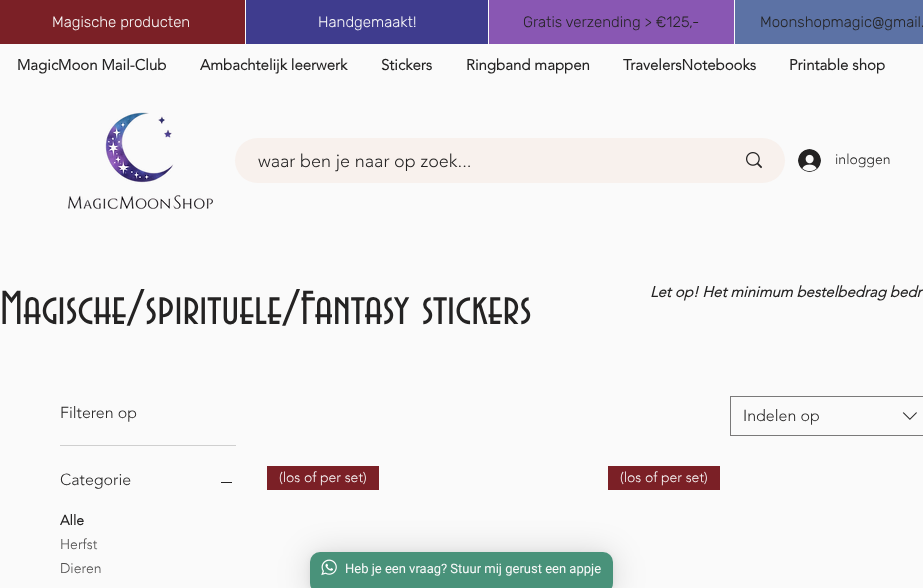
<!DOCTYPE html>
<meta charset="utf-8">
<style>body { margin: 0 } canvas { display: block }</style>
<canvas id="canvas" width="923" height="588"></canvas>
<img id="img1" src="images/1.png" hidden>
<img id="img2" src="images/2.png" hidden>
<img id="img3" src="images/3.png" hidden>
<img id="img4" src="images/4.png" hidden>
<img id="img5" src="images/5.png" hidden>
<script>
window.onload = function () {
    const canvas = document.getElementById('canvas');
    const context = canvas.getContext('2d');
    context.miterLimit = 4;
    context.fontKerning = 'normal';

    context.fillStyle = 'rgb(250, 250, 250)';
    context.fillRect(0, 0, 923, 588);
    context.fillStyle = 'rgb(123, 32, 38)';
    context.fillRect(0, 0, 245, 44);
    context.fillStyle = 'rgb(63, 60, 142)';
    context.fillRect(246, 0, 242, 44);
    context.fillStyle = 'rgb(137, 87, 179)';
    context.fillRect(489, 0, 245, 44);
    context.fillStyle = 'rgb(92, 114, 165)';
    context.fillRect(735, 0, 188, 44);
    context.drawImage(document.getElementById('img1'), 68, 112, 145, 98);
    context.fillStyle = 'rgb(248, 241, 237)';
    context.beginPath();
    context.roundRect(235, 138, 550, 45, 22.5);
    context.fill();
    context.drawImage(document.getElementById('img2'), 746, 152, 16, 17);
    context.drawImage(document.getElementById('img3'), 798, 149, 23, 23);
    context.fillStyle = 'rgb(207, 207, 207)';
    context.fillRect(60, 445, 176, 1);
    context.fillStyle = 'rgb(36, 35, 35)';
    context.fillRect(221, 482, 11, 1);
    context.strokeStyle = 'rgb(122, 121, 121)';
    context.strokeRect(730.5, 396.5, 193, 39);
    context.drawImage(document.getElementById('img4'), 902, 412, 15, 8);
    context.fillStyle = 'rgb(123, 32, 38)';
    context.fillRect(267, 466, 112, 24);
    context.fillRect(608, 466, 112, 24);
    context.fillStyle = 'rgba(0, 0, 0, 0.16)';
    context.filter = 'blur(16px)';
    context.beginPath();
    context.roundRect(310, 554, 303, 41, 10);
    context.fill();
    context.filter = 'none';
    context.fillStyle = 'rgba(0, 0, 0, 0.06)';
    context.filter = 'blur(3px)';
    context.beginPath();
    context.roundRect(310, 553, 303, 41, 10);
    context.fill();
    context.filter = 'none';
    context.fillStyle = 'rgb(73, 146, 122)';
    context.beginPath();
    context.roundRect(310, 552, 303, 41, 10);
    context.fill();
    context.drawImage(document.getElementById('img5'), 321, 559, 16, 17);
    context.font = '300 15px Rubik';
    context.fillStyle = 'rgb(250, 250, 250)';
    context.fillText('Magische producten', 52, 27);
    context.fillText('Handgemaakt!', 318, 27);
    context.fillStyle = 'rgb(36, 35, 35)';
    context.fillText('Gratis verzending > €125,-', 523, 27);
    context.fillText('Moonshopmagic@gmail.', 760, 27);
    context.font = 'bold 15px "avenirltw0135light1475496"';
    context.fillText('MagicMoon Mail-Club', 17, 70);
    context.fillText('Ambachtelijk leerwerk', 200, 70);
    context.fillText('Stickers', 381, 70);
    context.fillText('Ringband mappen', 466, 70);
    context.fillText('TravelersNotebooks', 623, 70);
    context.fillText('Printable shop', 789, 70);
    context.font = '300 18px "avenirltw0135light1475496"';
    context.fillText('waar ben je naar op zoek...', 258, 167);
    context.font = '300 14px "avenirltw0135light1475496"';
    context.fillText('inloggen', 835, 164);
    context.font = '50px "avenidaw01"';
    context.fillText('Magische/spirituele/Fantasy stickers', 0, 324);
    context.font = 'italic bold 15px "avenirltw0135light1475496"';
    context.fillText('Let op! Het minimum bestelbedrag bedr', 650, 297);
    context.font = '300 16px "avenirltw0135light1475496"';
    context.fillText('Filteren op', 60, 418);
    context.fillText('Categorie', 60, 485);
    context.font = 'bold 14px "avenirltw0135light1475496"';
    context.fillText('Alle', 60, 525);
    context.font = '300 14px "avenirltw0135light1475496"';
    context.fillStyle = 'rgb(79, 78, 78)';
    context.fillText('Herfst', 60, 549);
    context.fillText('Dieren', 60, 573);
    context.font = '300 16px "avenirltw0135light1475496"';
    context.fillStyle = 'rgb(36, 35, 35)';
    context.fillText('Indelen op', 743, 421);
    context.font = '300 14px "avenirltw0135light1475496"';
    context.fillStyle = 'rgb(250, 250, 250)';
    context.fillText('(los of per set)', 279, 482);
    context.fillText('(los of per set)', 620, 482);
    context.font = '13px Roboto';
    context.fillText('Heb je een vraag? Stuur mij gerust een appje', 345, 573);
};
</script>
